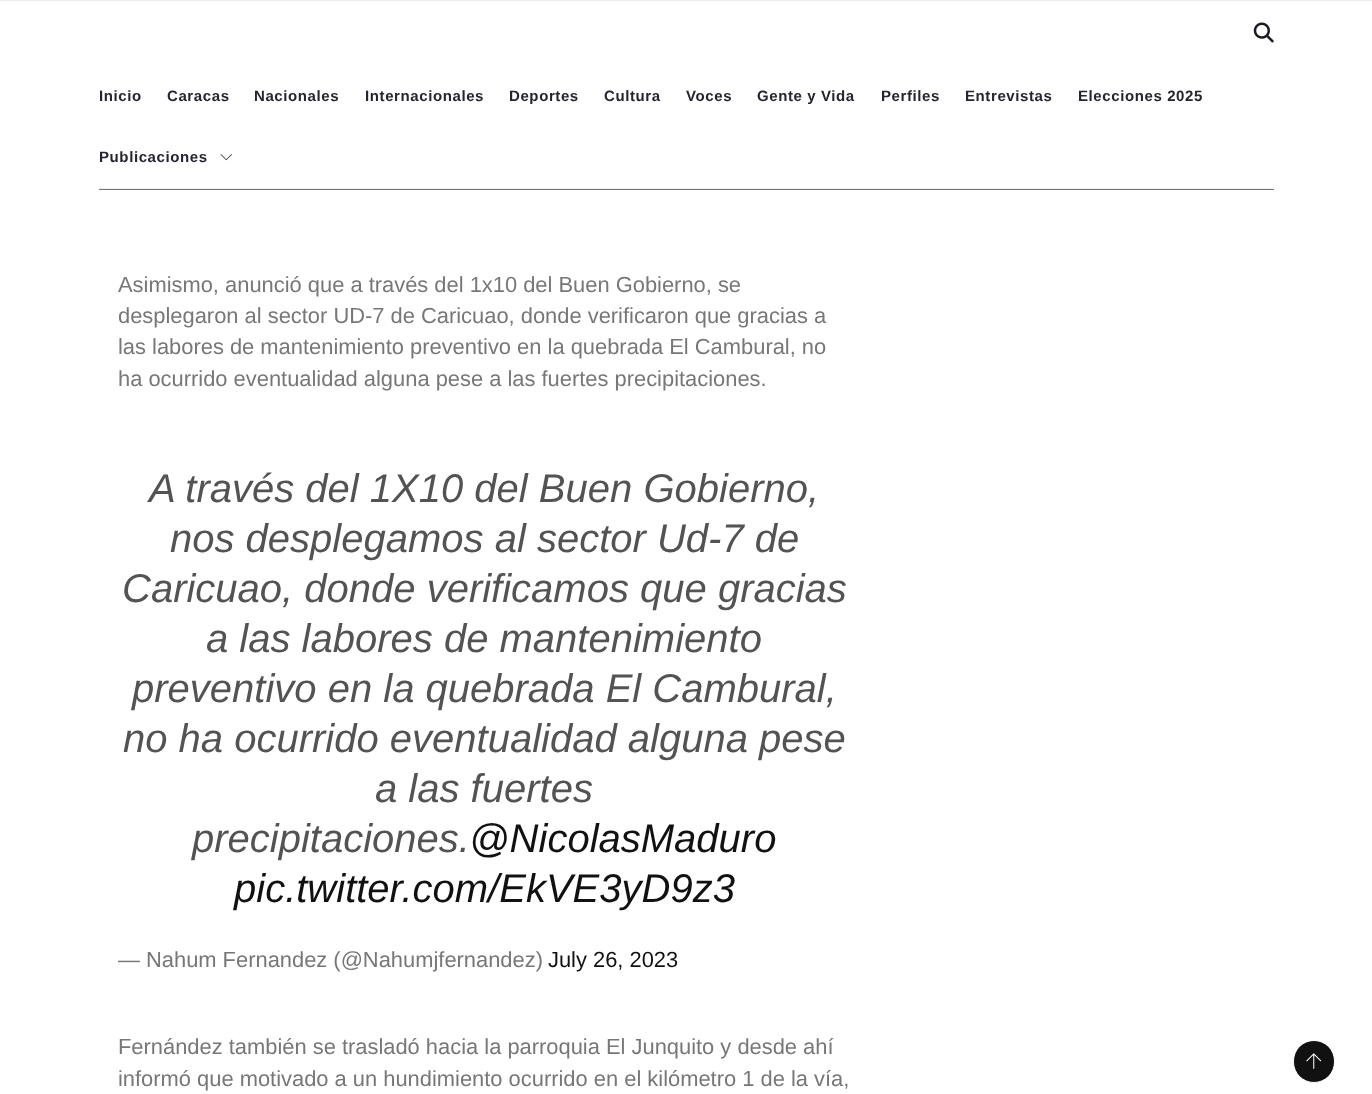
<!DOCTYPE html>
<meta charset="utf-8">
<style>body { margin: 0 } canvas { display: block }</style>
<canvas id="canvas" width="1372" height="1094"></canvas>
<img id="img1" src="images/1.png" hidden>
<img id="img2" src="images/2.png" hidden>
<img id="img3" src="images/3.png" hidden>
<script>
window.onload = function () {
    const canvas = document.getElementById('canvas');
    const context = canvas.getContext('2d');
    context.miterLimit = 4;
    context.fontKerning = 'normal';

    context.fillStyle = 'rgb(255, 255, 255)';
    context.fillRect(0, 0, 1372, 1094);
    context.fillStyle = 'rgb(235, 235, 235)';
    context.fillRect(0, 0, 1372, 1);
    context.drawImage(document.getElementById('img1'), 1253, 22, 21, 21);
    context.drawImage(document.getElementById('img2'), 220, 154, 12, 7);
    context.fillStyle = 'rgb(238, 238, 238)';
    context.fillRect(99, 188, 1175, 1);
    context.fillStyle = 'rgb(116, 116, 116)';
    context.fillRect(99, 189, 1175, 1);
    context.fillStyle = 'rgb(17, 17, 17)';
    context.beginPath();
    context.roundRect(1293.5, 1040.5, 41, 42, 20.5);
    context.fill();
    context.strokeStyle = 'rgb(255, 255, 255)';
    context.stroke();
    context.drawImage(document.getElementById('img3'), 1306, 1053, 16, 16);
    context.letterSpacing = '0.6px';
    context.font = 'bold 15px Liberation Sans';
    context.fillStyle = 'rgb(36, 37, 47)';
    context.fillText('Inicio', 99, 101);
    context.fillText('Caracas', 167, 101);
    context.fillText('Nacionales', 254, 101);
    context.fillText('Internacionales', 365, 101);
    context.fillText('Deportes', 509, 101);
    context.fillText('Cultura', 604, 101);
    context.fillText('Voces', 686, 101);
    context.fillText('Gente y Vida', 757, 101);
    context.fillText('Perfiles', 881, 101);
    context.fillText('Entrevistas', 965, 101);
    context.fillText('Elecciones 2025', 1078, 101);
    context.fillText('Publicaciones', 99, 162);
    context.letterSpacing = '0px';
    context.font = '21.9px Liberation Sans';
    context.fillStyle = 'rgb(119, 119, 119)';
    context.fillText('Asimismo, anunció que a través del 1x10 del Buen Gobierno, se', 118, 292);
    context.fillText('desplegaron al sector UD-7 de Caricuao, donde verificaron que gracias a', 118, 323);
    context.fillText('las labores de mantenimiento preventivo en la quebrada El Cambural, no', 118, 354);
    context.fillText('ha ocurrido eventualidad alguna pese a las fuertes precipitaciones.', 118, 386);
    context.font = 'italic 40px Liberation Sans';
    context.fillStyle = 'rgb(83, 83, 83)';
    context.fillText('A través del 1X10 del Buen Gobierno,', 149, 502);
    context.fillText('nos desplegamos al sector Ud-7 de', 170, 552);
    context.fillText('Caricuao, donde verificamos que gracias', 122, 602);
    context.fillText('a las labores de mantenimiento', 206, 652);
    context.fillText('preventivo en la quebrada El Cambural,', 132, 702);
    context.fillText('no ha ocurrido eventualidad alguna pese', 123, 752);
    context.fillText('a las fuertes', 375, 802);
    context.fillText('precipitaciones.', 192, 852);
    context.fillStyle = 'rgb(17, 17, 17)';
    context.fillText('@NicolasMaduro', 469, 852);
    context.fillText('pic.twitter.com/EkVE3yD9z3', 234, 902);
    context.font = '21.9px Liberation Sans';
    context.fillStyle = 'rgb(119, 119, 119)';
    context.fillText('— Nahum Fernandez (@Nahumjfernandez)', 118, 967);
    context.fillStyle = 'rgb(17, 17, 17)';
    context.fillText('July 26, 2023', 548, 967);
    context.fillStyle = 'rgb(119, 119, 119)';
    context.fillText('Fernández también se trasladó hacia la parroquia El Junquito y desde ahí', 118, 1054);
    context.fillText('informó que motivado a un hundimiento ocurrido en el kilómetro 1 de la vía,', 118, 1086);
};
</script>
